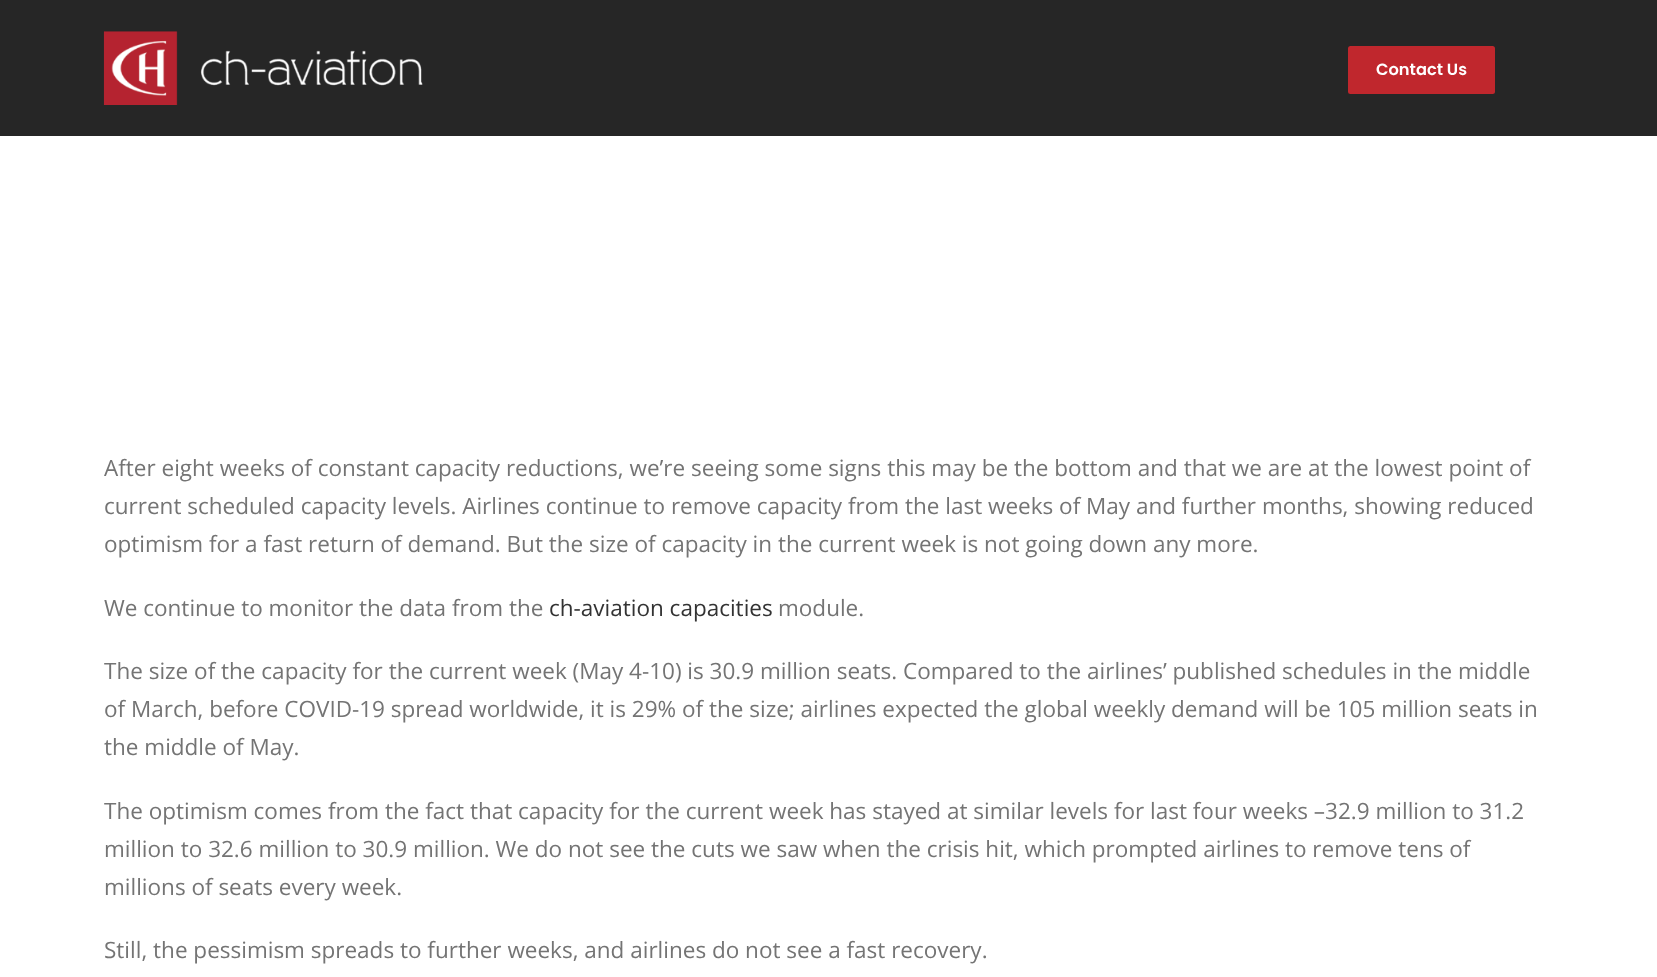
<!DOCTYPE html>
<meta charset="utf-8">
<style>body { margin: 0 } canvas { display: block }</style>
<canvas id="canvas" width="1657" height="977"></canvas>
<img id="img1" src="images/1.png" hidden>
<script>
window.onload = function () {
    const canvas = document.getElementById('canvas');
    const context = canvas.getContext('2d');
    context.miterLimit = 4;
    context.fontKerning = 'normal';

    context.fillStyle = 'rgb(255, 255, 255)';
    context.fillRect(0, 0, 1657, 977);
    context.fillStyle = 'rgb(38, 38, 38)';
    context.fillRect(0, 0, 1657, 136);
    context.drawImage(document.getElementById('img1'), 103, 31, 320, 74);
    context.fillStyle = 'rgb(192, 39, 45)';
    context.beginPath();
    context.roundRect(1348, 46, 147, 48, 2.5);
    context.fill();
    context.font = '600 16.25px Poppins';
    context.fillStyle = 'rgb(255, 255, 255)';
    context.fillText('Contact Us', 1376, 75);
    context.font = '22.5px Open Sans';
    context.fillStyle = 'rgb(116, 116, 116)';
    context.fillText('After eight weeks of constant capacity reductions, we’re seeing some signs this may be the bottom and that we are at the lowest point of', 104, 476);
    context.fillText('current scheduled capacity levels. Airlines continue to remove capacity from the last weeks of May and further months, showing reduced', 104, 514);
    context.fillText('optimism for a fast return of demand. But the size of capacity in the current week is not going down any more.', 104, 552);
    context.fillText('We continue to monitor the data from the', 104, 616);
    context.fillStyle = 'rgb(51, 51, 51)';
    context.fillText('ch-aviation capacities', 549, 616);
    context.fillStyle = 'rgb(116, 116, 116)';
    context.fillText('module.', 778, 616);
    context.fillText('The size of the capacity for the current week (May 4-10) is 30.9 million seats. Compared to the airlines’ published schedules in the middle', 104, 679);
    context.fillText('of March, before COVID-19 spread worldwide, it is 29% of the size; airlines expected the global weekly demand will be 105 million seats in', 104, 717);
    context.fillText('the middle of May.', 104, 755);
    context.fillText('The optimism comes from the fact that capacity for the current week has stayed at similar levels for last four weeks –32.9 million to 31.2', 104, 819);
    context.fillText('million to 32.6 million to 30.9 million. We do not see the cuts we saw when the crisis hit, which prompted airlines to remove tens of', 104, 857);
    context.fillText('millions of seats every week.', 104, 895);
    context.fillText('Still, the pessimism spreads to further weeks, and airlines do not see a fast recovery.', 104, 958);
};
</script>
